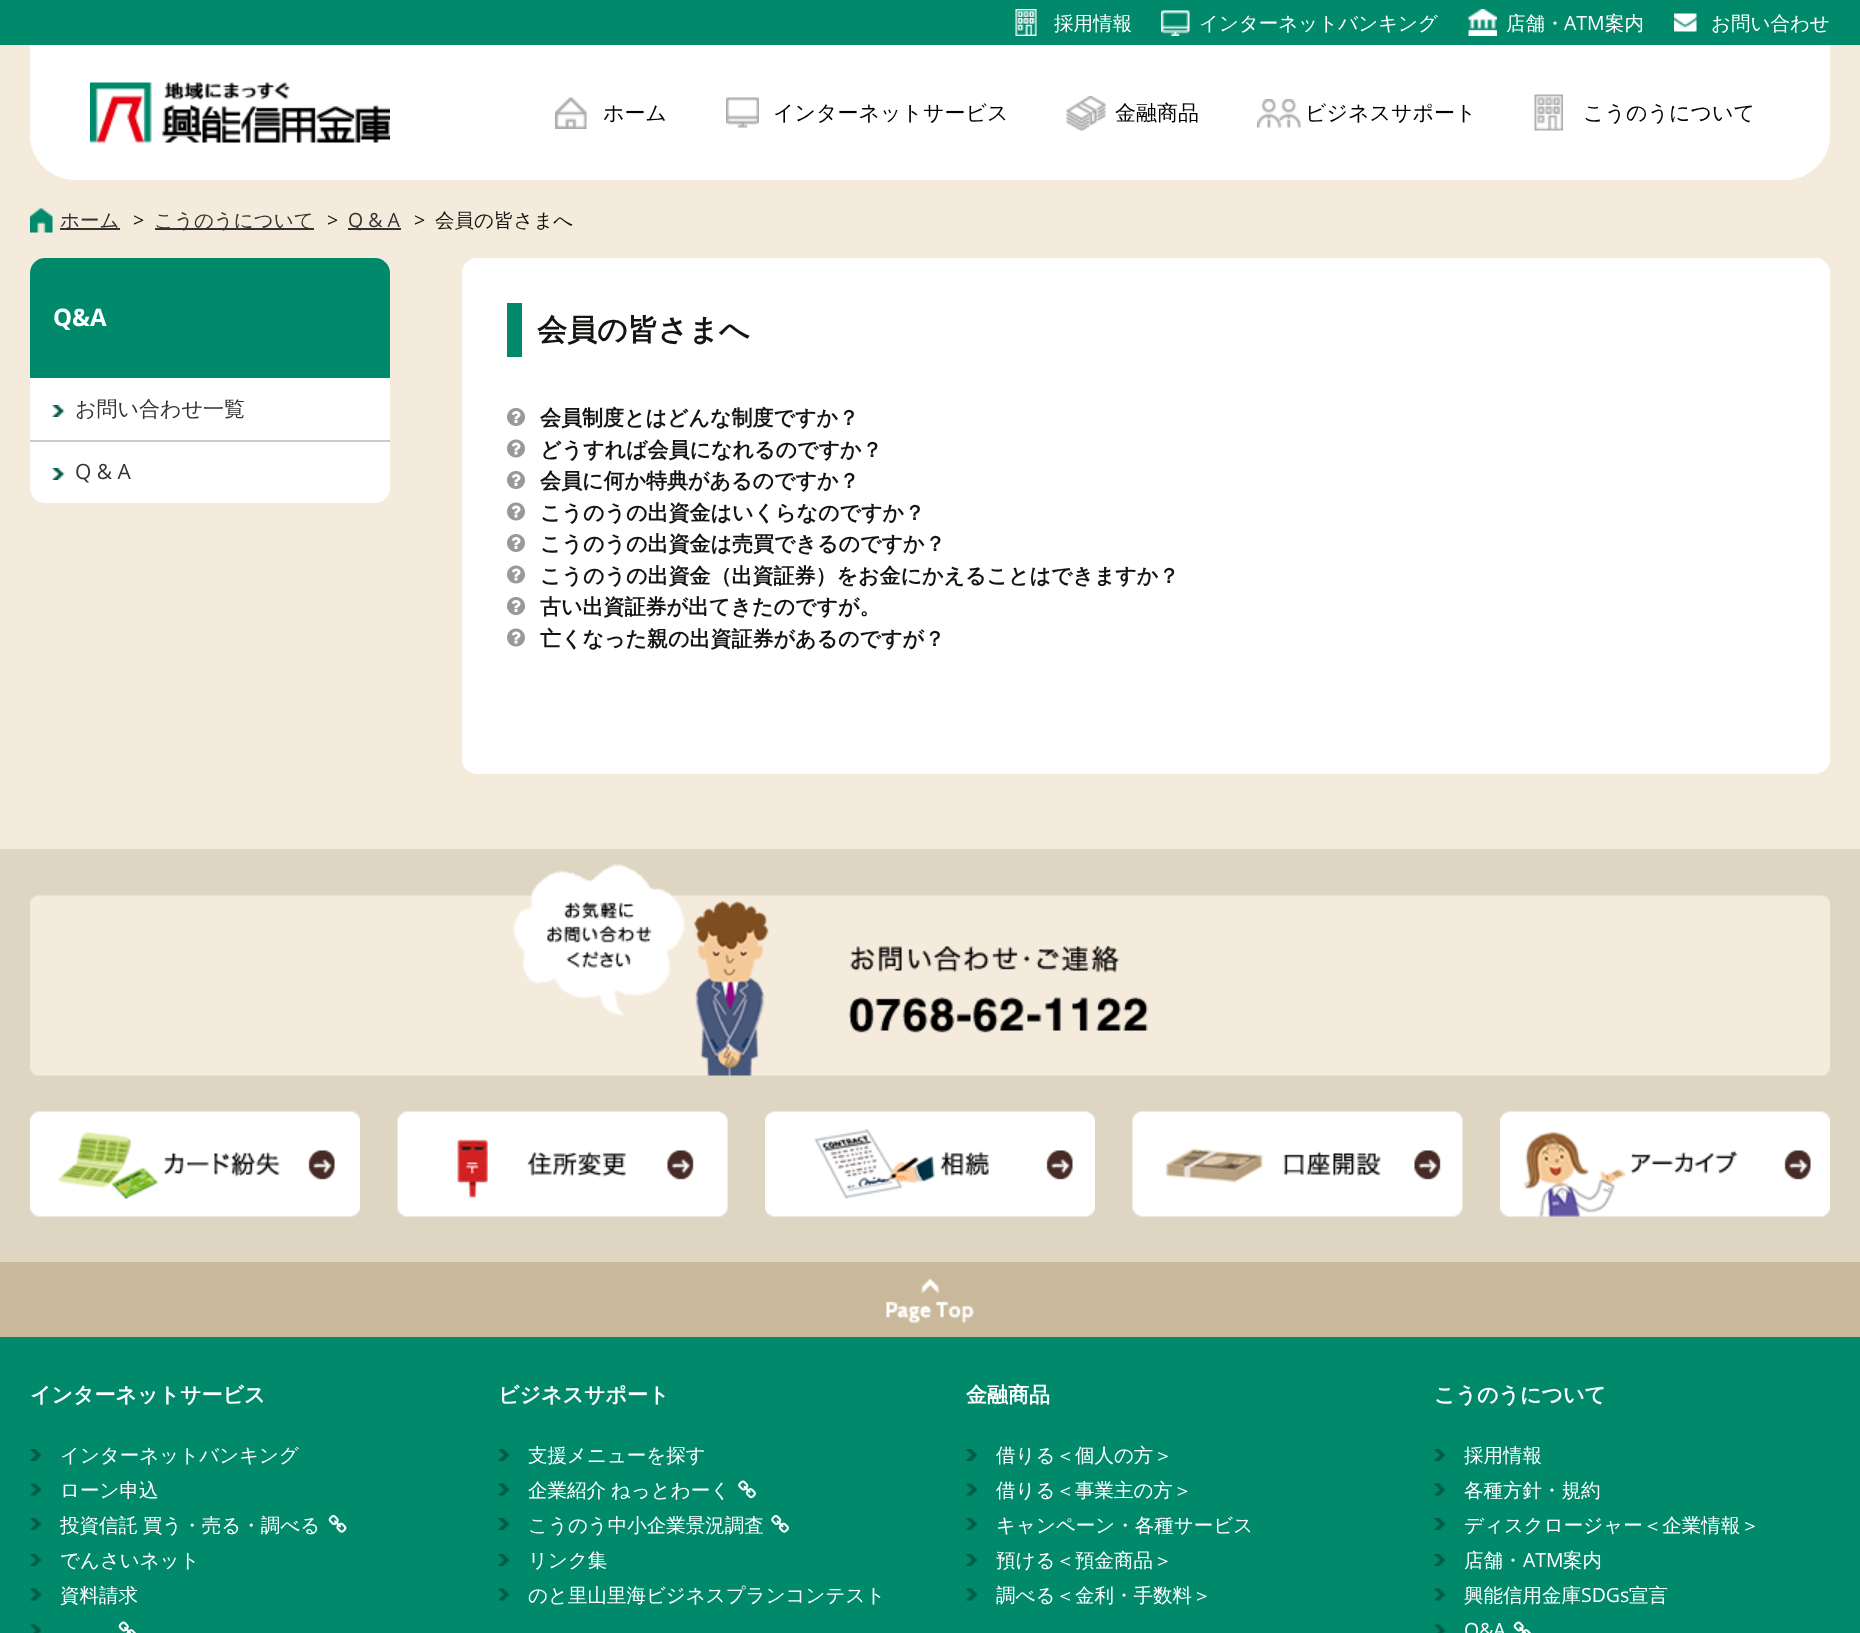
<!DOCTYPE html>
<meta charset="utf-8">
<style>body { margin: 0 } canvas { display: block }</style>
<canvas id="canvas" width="1860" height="1633"></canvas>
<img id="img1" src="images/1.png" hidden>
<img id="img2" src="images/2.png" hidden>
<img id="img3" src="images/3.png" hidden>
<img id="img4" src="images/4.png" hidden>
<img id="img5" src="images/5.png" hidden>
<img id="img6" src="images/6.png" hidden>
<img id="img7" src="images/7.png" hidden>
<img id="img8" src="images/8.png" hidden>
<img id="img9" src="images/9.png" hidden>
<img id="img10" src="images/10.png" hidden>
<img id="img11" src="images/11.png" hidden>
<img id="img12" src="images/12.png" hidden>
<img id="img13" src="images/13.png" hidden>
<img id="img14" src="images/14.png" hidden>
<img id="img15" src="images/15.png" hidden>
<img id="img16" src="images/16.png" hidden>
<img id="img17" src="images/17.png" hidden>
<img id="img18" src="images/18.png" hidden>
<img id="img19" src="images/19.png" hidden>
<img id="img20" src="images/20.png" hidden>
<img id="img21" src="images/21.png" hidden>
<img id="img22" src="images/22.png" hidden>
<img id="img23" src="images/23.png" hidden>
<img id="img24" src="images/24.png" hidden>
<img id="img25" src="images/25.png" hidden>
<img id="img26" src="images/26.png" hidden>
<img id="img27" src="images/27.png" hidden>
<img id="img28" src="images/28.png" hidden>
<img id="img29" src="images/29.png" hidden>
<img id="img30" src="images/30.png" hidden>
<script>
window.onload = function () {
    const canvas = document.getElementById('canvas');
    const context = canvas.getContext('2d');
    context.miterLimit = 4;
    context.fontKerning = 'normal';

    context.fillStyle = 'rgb(245, 235, 220)';
    context.fillRect(0, 0, 1860, 1633);
    context.fillStyle = 'rgb(0, 137, 107)';
    context.fillRect(0, 0, 1860, 45);
    context.drawImage(document.getElementById('img1'), 1015, 9, 22, 27);
    context.drawImage(document.getElementById('img2'), 1161, 10, 29, 26);
    context.drawImage(document.getElementById('img3'), 1468, 9, 29, 27);
    context.drawImage(document.getElementById('img4'), 1674, 13, 23, 19);
    context.fillStyle = 'rgb(255, 255, 255)';
    context.beginPath();
    context.roundRect(30, 45, 1800, 135, [0, 0, 45, 45]);
    context.fill();
    context.drawImage(document.getElementById('img5'), 90, 82, 300, 61);
    context.drawImage(document.getElementById('img6'), 555, 97, 32, 32);
    context.drawImage(document.getElementById('img7'), 726, 97, 33, 31);
    context.drawImage(document.getElementById('img8'), 1066, 96, 40, 35);
    context.drawImage(document.getElementById('img9'), 1257, 99, 44, 29);
    context.drawImage(document.getElementById('img10'), 1534, 94, 29, 37);
    context.drawImage(document.getElementById('img11'), 30, 208, 23, 25);
    context.fillStyle = 'rgb(51, 51, 51)';
    context.fillRect(60, 228, 60, 2);
    context.fillRect(155, 228, 159, 2);
    context.fillRect(348, 228, 53, 2);
    context.fillStyle = 'rgb(0, 137, 107)';
    context.beginPath();
    context.roundRect(30, 258, 360, 120, [15, 15, 0, 0]);
    context.fill();
    context.fillStyle = 'rgb(255, 255, 255)';
    context.beginPath();
    context.roundRect(30, 378, 360, 125, [0, 0, 15, 15]);
    context.fill();
    context.fillStyle = 'rgb(204, 204, 204)';
    context.fillRect(30, 440, 360, 2);
    context.drawImage(document.getElementById('img12'), 52, 405, 13, 12);
    context.drawImage(document.getElementById('img12'), 52, 468, 13, 12);
    context.fillStyle = 'rgb(255, 255, 255)';
    context.beginPath();
    context.roundRect(462, 258, 1368, 516, 15);
    context.fill();
    context.fillStyle = 'rgb(0, 137, 107)';
    context.fillRect(507, 303, 15, 54);
    context.drawImage(document.getElementById('img13'), 507, 408, 18, 18);
    context.drawImage(document.getElementById('img14'), 507, 439, 18, 19);
    context.drawImage(document.getElementById('img13'), 507, 471, 18, 18);
    context.drawImage(document.getElementById('img14'), 507, 502, 18, 19);
    context.drawImage(document.getElementById('img13'), 507, 534, 18, 18);
    context.drawImage(document.getElementById('img14'), 507, 565, 18, 19);
    context.drawImage(document.getElementById('img13'), 507, 597, 18, 18);
    context.drawImage(document.getElementById('img14'), 507, 628, 18, 19);
    context.fillStyle = 'rgb(223, 213, 195)';
    context.fillRect(0, 849, 1860, 413);
    context.drawImage(document.getElementById('img15'), 30, 864, 1800, 212);
    context.drawImage(document.getElementById('img16'), 30, 1111, 330, 106);
    context.drawImage(document.getElementById('img17'), 397, 1111, 331, 106);
    context.drawImage(document.getElementById('img18'), 765, 1111, 330, 106);
    context.drawImage(document.getElementById('img19'), 1132, 1111, 331, 106);
    context.drawImage(document.getElementById('img20'), 1500, 1111, 330, 106);
    context.fillStyle = 'rgb(201, 185, 154)';
    context.fillRect(0, 1262, 1860, 75);
    context.drawImage(document.getElementById('img21'), 886, 1278, 88, 45);
    context.fillStyle = 'rgb(0, 137, 107)';
    context.fillRect(0, 1337, 1860, 296);
    context.drawImage(document.getElementById('img22'), 30, 1449, 12, 12);
    context.drawImage(document.getElementById('img23'), 30, 1483, 12, 13);
    context.drawImage(document.getElementById('img22'), 30, 1518, 12, 12);
    context.drawImage(document.getElementById('img24'), 328, 1515, 19, 18);
    context.drawImage(document.getElementById('img22'), 30, 1554, 12, 12);
    context.drawImage(document.getElementById('img23'), 30, 1588, 12, 13);
    context.drawImage(document.getElementById('img25'), 30, 1624, 12, 9);
    context.drawImage(document.getElementById('img26'), 118, 1621, 18, 12);
    context.drawImage(document.getElementById('img27'), 498, 1449, 12, 12);
    context.drawImage(document.getElementById('img28'), 498, 1483, 12, 13);
    context.drawImage(document.getElementById('img29'), 738, 1480, 18, 19);
    context.drawImage(document.getElementById('img27'), 498, 1518, 12, 12);
    context.drawImage(document.getElementById('img30'), 771, 1515, 18, 18);
    context.drawImage(document.getElementById('img27'), 498, 1554, 12, 12);
    context.drawImage(document.getElementById('img28'), 498, 1588, 12, 13);
    context.drawImage(document.getElementById('img22'), 966, 1449, 12, 12);
    context.drawImage(document.getElementById('img23'), 966, 1483, 12, 13);
    context.drawImage(document.getElementById('img22'), 966, 1518, 12, 12);
    context.drawImage(document.getElementById('img22'), 966, 1554, 12, 12);
    context.drawImage(document.getElementById('img23'), 966, 1588, 12, 13);
    context.drawImage(document.getElementById('img22'), 1434, 1449, 12, 12);
    context.drawImage(document.getElementById('img23'), 1434, 1483, 12, 13);
    context.drawImage(document.getElementById('img22'), 1434, 1518, 12, 12);
    context.drawImage(document.getElementById('img22'), 1434, 1554, 12, 12);
    context.drawImage(document.getElementById('img23'), 1434, 1588, 12, 13);
    context.drawImage(document.getElementById('img25'), 1434, 1624, 12, 9);
    context.drawImage(document.getElementById('img26'), 1513, 1621, 18, 12);
    context.font = '500 19.5px WenQuanYi Zen Hei';
    context.fillStyle = 'rgb(255, 255, 255)';
    context.fillText('採用情報', 1054, 30);
    context.fillText('インターネットバンキング', 1199, 30);
    context.fillText('店舗・', 1506, 30);
    context.font = '19.5px Open Sans';
    context.fillText('ATM', 1564, 30);
    context.font = '500 19.5px WenQuanYi Zen Hei';
    context.fillText('案内', 1605, 30);
    context.fillText('お問い合わせ', 1711, 30);
    context.font = '500 21px WenQuanYi Zen Hei';
    context.fillStyle = 'rgb(0, 0, 0)';
    context.fillText('ホーム', 603, 120);
    context.fillText('インターネットサービス', 773, 120);
    context.fillText('金融商品', 1115, 120);
    context.fillText('ビジネスサポート', 1305, 120);
    context.fillText('こうのうについて', 1583, 120);
    context.font = '500 19.5px WenQuanYi Zen Hei';
    context.fillStyle = 'rgb(51, 51, 51)';
    context.fillText('ホーム', 60, 227);
    context.font = '19.5px Open Sans';
    context.fillStyle = 'rgb(20, 20, 18)';
    context.fillText('>', 133, 227);
    context.font = '500 19.5px WenQuanYi Zen Hei';
    context.fillStyle = 'rgb(51, 51, 51)';
    context.fillText('こうのうについて', 154, 227);
    context.font = '19.5px Open Sans';
    context.fillStyle = 'rgb(20, 20, 18)';
    context.fillText('>', 327, 227);
    context.fillStyle = 'rgb(51, 51, 51)';
    context.fillText('Q & A', 348, 227);
    context.fillStyle = 'rgb(20, 20, 18)';
    context.fillText('>', 414, 227);
    context.font = '500 19.5px WenQuanYi Zen Hei';
    context.fillText('会員の皆さまへ', 435, 227);
    context.font = 'bold 24px Open Sans';
    context.fillStyle = 'rgb(255, 255, 255)';
    context.fillText('Q&A', 53, 326);
    context.font = '500 21px WenQuanYi Zen Hei';
    context.fillStyle = 'rgb(51, 51, 51)';
    context.fillText('お問い合わせ一覧', 75, 416);
    context.font = '21px Open Sans';
    context.fillText('Q & A', 75, 479);
    context.font = 'bold 30px WenQuanYi Zen Hei';
    context.fillStyle = 'rgb(20, 20, 18)';
    context.fillText('会員の皆さまへ', 537, 340);
    context.font = 'bold 21px WenQuanYi Zen Hei';
    context.fillText('会員制度とはどんな制度ですか？', 540, 425);
    context.fillText('どうすれば会員になれるのですか？', 540, 457);
    context.fillText('会員に何か特典があるのですか？', 540, 488);
    context.fillText('こうのうの出資金はいくらなのですか？', 540, 520);
    context.fillText('こうのうの出資金は売買できるのですか？', 540, 551);
    context.fillText('こうのうの出資金（出資証券）をお金にかえることはできますか？', 540, 583);
    context.fillText('古い出資証券が出てきたのですが。', 540, 614);
    context.fillText('亡くなった親の出資証券があるのですが？', 540, 646);
    context.fillStyle = 'rgb(255, 255, 255)';
    context.fillText('インターネットサービス', 30, 1402);
    context.font = '500 19.5px WenQuanYi Zen Hei';
    context.fillText('インターネットバンキング', 60, 1462);
    context.fillText('ローン申込', 60, 1497);
    context.wordSpacing = '-1px';
    context.fillText('投資信託 買う・売る・調べる', 60, 1532);
    context.wordSpacing = '0px';
    context.fillText('でんさいネット', 60, 1567);
    context.fillText('資料請求', 60, 1602);
    context.font = 'bold 21px WenQuanYi Zen Hei';
    context.fillText('ビジネスサポート', 498, 1402);
    context.font = '500 19.5px WenQuanYi Zen Hei';
    context.fillText('支援メニューを探す', 528, 1462);
    context.wordSpacing = '-1px';
    context.fillText('企業紹介 ねっとわーく', 528, 1497);
    context.wordSpacing = '0px';
    context.fillText('こうのう中小企業景況調査', 528, 1532);
    context.fillText('リンク集', 528, 1567);
    context.fillText('のと里山里海ビジネスプランコンテスト', 528, 1602);
    context.font = 'bold 21px WenQuanYi Zen Hei';
    context.fillText('金融商品', 966, 1402);
    context.font = '500 19.5px WenQuanYi Zen Hei';
    context.fillText('借りる＜個人の方＞', 996, 1462);
    context.fillText('借りる＜事業主の方＞', 996, 1497);
    context.fillText('キャンペーン・各種サービス', 996, 1532);
    context.fillText('預ける＜預金商品＞', 996, 1567);
    context.fillText('調べる＜金利・手数料＞', 996, 1602);
    context.font = 'bold 21px WenQuanYi Zen Hei';
    context.fillText('こうのうについて', 1434, 1402);
    context.font = '500 19.5px WenQuanYi Zen Hei';
    context.fillText('採用情報', 1464, 1462);
    context.fillText('各種方針・規約', 1464, 1497);
    context.fillText('ディスクロージャー＜企業情報＞', 1464, 1532);
    context.fillText('店舗・', 1464, 1567);
    context.font = '19.5px Open Sans';
    context.fillText('ATM', 1523, 1567);
    context.font = '500 19.5px WenQuanYi Zen Hei';
    context.fillText('案内', 1563, 1567);
    context.fillText('興能信用金庫', 1464, 1602);
    context.font = '19.5px Open Sans';
    context.fillText('SDGs', 1581, 1602);
    context.font = '500 19.5px WenQuanYi Zen Hei';
    context.fillText('宣言', 1629, 1602);
    context.font = '19.5px Open Sans';
    context.fillText('Q&A', 1464, 1637);
};
</script>
